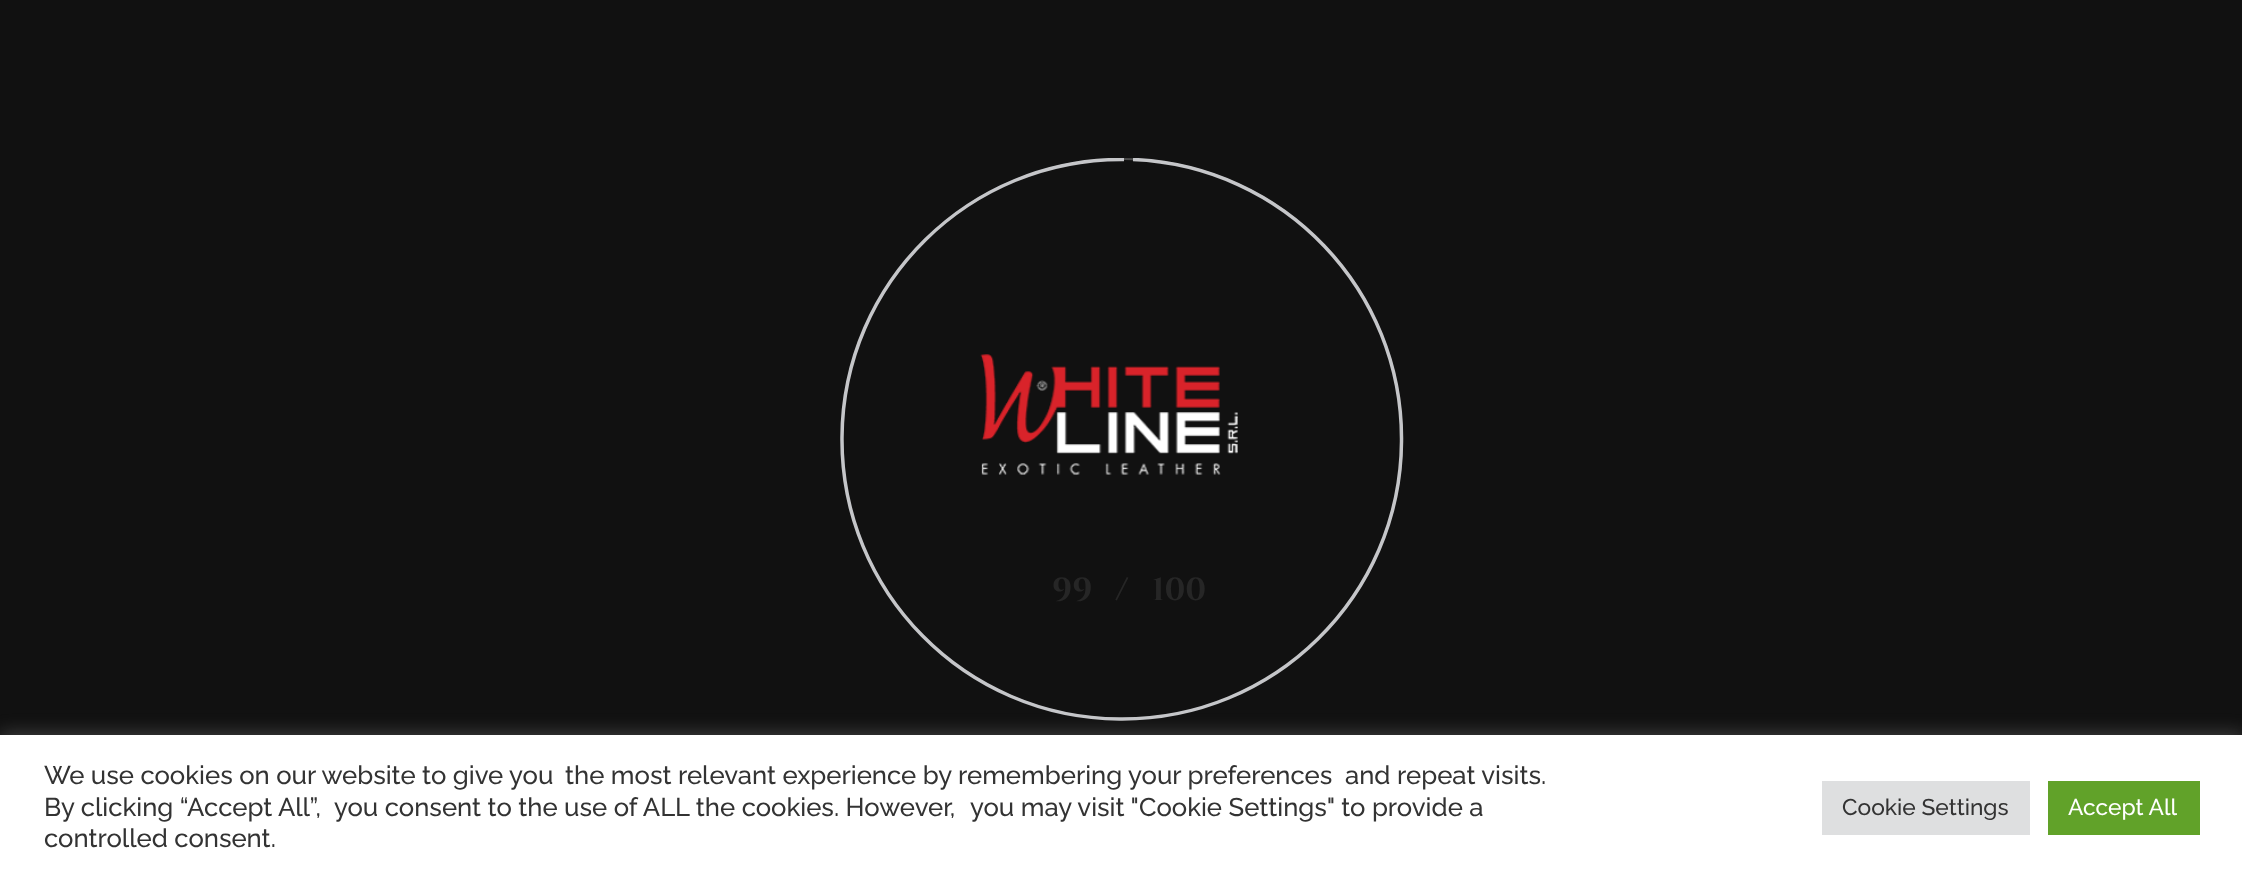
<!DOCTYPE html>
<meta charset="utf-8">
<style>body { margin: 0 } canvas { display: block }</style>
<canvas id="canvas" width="2242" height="878"></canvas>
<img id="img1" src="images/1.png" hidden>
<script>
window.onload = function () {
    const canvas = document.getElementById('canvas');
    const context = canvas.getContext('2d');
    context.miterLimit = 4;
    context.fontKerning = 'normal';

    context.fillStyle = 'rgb(17, 17, 17)';
    context.fillRect(0, 0, 2242, 878);
    context.drawImage(document.getElementById('img1'), 980, 354, 258, 121);
    context.fillStyle = 'rgba(172, 171, 171, 0.3)';
    context.filter = 'blur(9px)';
    context.beginPath();
    context.rect(0, 733, 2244, 144);
    context.fill();
    context.filter = 'none';
    context.fillStyle = 'rgb(255, 255, 255)';
    context.fillRect(0, 735, 2242, 143);
    context.fillStyle = 'rgb(222, 223, 224)';
    context.fillRect(1822, 781, 208, 54);
    context.fillStyle = 'rgb(97, 162, 41)';
    context.fillRect(2048, 781, 152, 54);
    context.font = 'bold 32px Cinzel';
    context.fillStyle = 'rgb(38, 38, 38)';
    context.fillText('99', 1052, 600);
    context.fillText('/', 1115, 600);
    context.fillText('100', 1152, 600);
    context.beginPath();
    context.arc(1122, 439, 280, 0, 2 * Math.PI);
    context.strokeStyle = 'rgba(119, 119, 119, 0.6)';
    context.lineWidth = 1.8;
    context.stroke();
    context.save();
    context.beginPath();
    context.rect(840, 158, 564, 563);
    context.clip();
    context.beginPath();
    context.moveTo(1133, 159.5);
    context.bezierCurveTo(1283.5, 165.5, 1403, 290, 1401.5, 441.5);
    context.bezierCurveTo(1400.5, 596, 1274, 720.5, 1119.5, 719);
    context.bezierCurveTo(965, 718, 840.5, 591.5, 842, 437);
    context.bezierCurveTo(843, 282.5, 969.5, 158, 1124, 159.5);
    context.strokeStyle = 'rgb(197, 198, 201)';
    context.lineWidth = 3.5;
    context.stroke();
    context.restore();
    context.font = '500 25.67px Raleway';
    context.fillStyle = 'rgb(51, 51, 51)';
    context.fillText('We use cookies on our website to give you', 44, 784);
    context.fillText('the most relevant experience by remembering your preferences', 565, 784);
    context.fillText('and repeat visits.', 1345, 784);
    context.fillText('By clicking “Accept All”,', 44, 816);
    context.fillText('you consent to the use of ALL the cookies. However,', 334, 816);
    context.fillText('you may visit "Cookie Settings" to provide a', 970, 816);
    context.fillText('controlled consent.', 44, 847);
    context.font = '500 22.75px Raleway';
    context.fillText('Cookie Settings', 1842, 815);
    context.fillStyle = 'rgb(255, 255, 255)';
    context.fillText('Accept All', 2068, 815);
};
</script>
